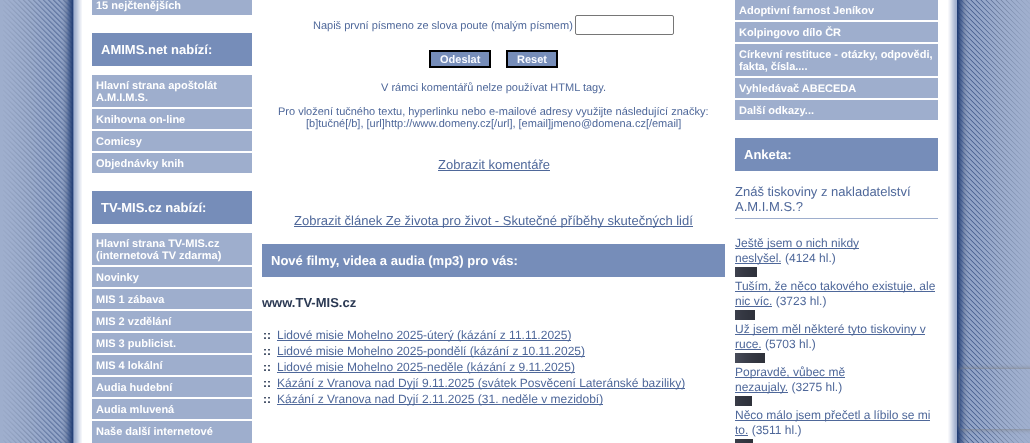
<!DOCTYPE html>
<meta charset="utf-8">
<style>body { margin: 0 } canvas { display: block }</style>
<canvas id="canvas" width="1030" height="443"></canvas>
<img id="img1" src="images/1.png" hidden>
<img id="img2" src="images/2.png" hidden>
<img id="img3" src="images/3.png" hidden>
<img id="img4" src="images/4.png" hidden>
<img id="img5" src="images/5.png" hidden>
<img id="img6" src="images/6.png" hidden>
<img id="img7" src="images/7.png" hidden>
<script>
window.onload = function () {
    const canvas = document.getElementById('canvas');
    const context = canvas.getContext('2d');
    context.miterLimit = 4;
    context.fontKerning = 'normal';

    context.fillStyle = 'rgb(255, 255, 255)';
    context.fillRect(0, 0, 1030, 443);
    context.fillStyle = 'rgb(158, 174, 205)';
    context.fillRect(0, 0, 3, 443);
    context.drawImage(document.getElementById('img1'), 3, 0, 79, 443);
    context.fillRect(92, 0, 160, 15);
    context.fillStyle = 'rgb(118, 141, 185)';
    context.fillRect(92, 33, 160, 33);
    context.fillStyle = 'rgb(158, 174, 205)';
    context.fillRect(92, 75, 160, 32);
    context.fillRect(92, 109, 160, 20);
    context.fillRect(92, 131, 160, 20);
    context.fillRect(92, 153, 160, 20);
    context.fillStyle = 'rgb(118, 141, 185)';
    context.fillRect(92, 191, 160, 33);
    context.fillStyle = 'rgb(158, 174, 205)';
    context.fillRect(92, 233, 160, 32);
    context.fillRect(92, 267, 160, 20);
    context.fillRect(92, 289, 160, 20);
    context.fillRect(92, 311, 160, 20);
    context.fillRect(92, 333, 160, 20);
    context.fillRect(92, 355, 160, 20);
    context.fillRect(92, 377, 160, 20);
    context.fillRect(92, 399, 160, 20);
    context.fillRect(92, 421, 160, 22);
    context.beginPath();
    context.roundRect(575.5, 15.5, 98, 19, 1.5);
    context.strokeStyle = 'rgb(118, 118, 118)';
    context.stroke();
    context.fillStyle = 'rgb(118, 141, 185)';
    context.beginPath();
    context.rect(430, 51, 60, 16);
    context.fill();
    context.strokeStyle = 'rgb(0, 0, 0)';
    context.lineWidth = 2;
    context.stroke();
    context.beginPath();
    context.rect(507, 51, 50, 16);
    context.fill();
    context.stroke();
    context.fillStyle = 'rgb(79, 104, 154)';
    context.fillRect(438, 170, 112, 1);
    context.fillRect(294, 226, 399, 1);
    context.fillStyle = 'rgb(118, 141, 185)';
    context.fillRect(262, 244, 463, 33);
    context.fillStyle = 'rgb(79, 104, 154)';
    context.fillRect(277, 340, 294, 1);
    context.fillRect(277, 356, 308, 1);
    context.fillRect(277, 372, 298, 1);
    context.fillRect(277, 388, 408, 1);
    context.fillRect(277, 404, 326, 1);
    context.fillStyle = 'rgb(158, 174, 205)';
    context.fillRect(735, 0, 203, 20);
    context.fillRect(735, 22, 203, 20);
    context.fillRect(735, 44, 203, 32);
    context.fillRect(735, 78, 203, 20);
    context.fillRect(735, 100, 203, 20);
    context.fillStyle = 'rgb(118, 141, 185)';
    context.fillRect(735, 138, 203, 33);
    context.fillStyle = 'rgb(158, 174, 205)';
    context.fillRect(735, 218, 203, 1);
    context.fillStyle = 'rgb(79, 104, 154)';
    context.fillRect(735, 248, 124, 1);
    context.fillRect(735, 263, 46, 1);
    context.drawImage(document.getElementById('img2'), 735, 267, 22, 10);
    context.fillRect(735, 291, 200, 1);
    context.fillRect(735, 306, 37, 1);
    context.drawImage(document.getElementById('img3'), 735, 310, 20, 10);
    context.fillRect(735, 334, 190, 1);
    context.fillRect(735, 349, 26, 1);
    context.drawImage(document.getElementById('img4'), 735, 353, 30, 10);
    context.fillRect(735, 377, 110, 1);
    context.fillRect(735, 392, 53, 1);
    context.drawImage(document.getElementById('img5'), 735, 396, 17, 10);
    context.fillRect(735, 420, 195, 1);
    context.fillRect(735, 435, 13, 1);
    context.drawImage(document.getElementById('img6'), 735, 439, 18, 4);
    context.drawImage(document.getElementById('img7'), 948, 0, 82, 443);
    context.save();
    context.beginPath();
    context.moveTo(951, 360);
    context.lineTo(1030, 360);
    context.lineTo(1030, 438);
    context.lineTo(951, 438);
    context.closePath();
    context.moveTo(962, 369);
    context.lineTo(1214, 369);
    context.bezierCurveTo(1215, 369, 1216, 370, 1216, 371);
    context.lineTo(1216, 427);
    context.bezierCurveTo(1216, 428, 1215, 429, 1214, 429);
    context.lineTo(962, 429);
    context.bezierCurveTo(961, 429, 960, 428, 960, 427);
    context.lineTo(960, 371);
    context.bezierCurveTo(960, 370, 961, 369, 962, 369);
    context.closePath();
    context.clip('evenodd');
    context.fillStyle = 'rgb(128, 128, 128)';
    context.filter = 'blur(2.5px)';
    context.beginPath();
    context.roundRect(960, 369, 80, 60, 2);
    context.fill();
    context.filter = 'none';
    context.restore();
    context.font = 'bold 11px Liberation Sans';
    context.fillStyle = 'rgb(255, 255, 255)';
    context.fillText('15 nejčtenějších', 96, 9);
    context.font = 'bold 13px Liberation Sans';
    context.fillText('AMIMS.net nabízí:', 101, 54);
    context.font = 'bold 11px Liberation Sans';
    context.fillText('Hlavní strana apoštolát', 96, 89);
    context.fillText('A.M.I.M.S.', 96, 101);
    context.fillText('Knihovna on-line', 96, 123);
    context.fillText('Comicsy', 96, 145);
    context.fillText('Objednávky knih', 96, 167);
    context.font = 'bold 13px Liberation Sans';
    context.fillText('TV-MIS.cz nabízí:', 101, 212);
    context.font = 'bold 11px Liberation Sans';
    context.fillText('Hlavní strana TV-MIS.cz', 96, 247);
    context.fillText('(internetová TV zdarma)', 96, 259);
    context.fillText('Novinky', 96, 281);
    context.fillText('MIS 1 zábava', 96, 303);
    context.fillText('MIS 2 vzdělání', 96, 325);
    context.fillText('MIS 3 publicist.', 96, 347);
    context.fillText('MIS 4 lokální', 96, 369);
    context.fillText('Audia hudební', 96, 391);
    context.fillText('Audia mluvená', 96, 413);
    context.fillText('Naše další internetové', 96, 435);
    context.font = '11px Liberation Sans';
    context.fillStyle = 'rgb(79, 104, 154)';
    context.fillText('Napiš první písmeno ze slova poute (malým písmem)', 313, 29);
    context.font = 'bold 11px Liberation Sans';
    context.fillStyle = 'rgb(248, 250, 255)';
    context.fillText('Odeslat', 440, 63);
    context.fillText('Reset', 517, 63);
    context.font = '11px Liberation Sans';
    context.fillStyle = 'rgb(79, 104, 154)';
    context.fillText('V rámci komentářů nelze používat HTML tagy.', 381, 91);
    context.fillText('Pro vložení tučného textu, hyperlinku nebo e-mailové adresy využijte následující značky:', 278, 115);
    context.fillText('[b]tučné[/b], [url]http://www.domeny.cz[/url], [email]jmeno@domena.cz[/email]', 306, 127);
    context.font = '13px Liberation Sans';
    context.fillText('Zobrazit komentáře', 438, 169);
    context.fillText('Zobrazit článek Ze života pro život - Skutečné příběhy skutečných lidí', 294, 225);
    context.font = 'bold 13px Liberation Sans';
    context.fillStyle = 'rgb(255, 255, 255)';
    context.fillText('Nové filmy, videa a audia (mp3) pro vás:', 271, 265);
    context.fillStyle = 'rgb(43, 57, 83)';
    context.fillText('www.TV-MIS.cz', 262, 307);
    context.font = 'bold 12px Liberation Sans';
    context.fillText('::', 263, 339);
    context.font = '12px Liberation Sans';
    context.fillStyle = 'rgb(79, 104, 154)';
    context.fillText('Lidové misie Mohelno 2025-úterý (kázání z 11.11.2025)', 277, 339);
    context.font = 'bold 12px Liberation Sans';
    context.fillStyle = 'rgb(43, 57, 83)';
    context.fillText('::', 263, 355);
    context.font = '12px Liberation Sans';
    context.fillStyle = 'rgb(79, 104, 154)';
    context.fillText('Lidové misie Mohelno 2025-pondělí (kázání z 10.11.2025)', 277, 355);
    context.font = 'bold 12px Liberation Sans';
    context.fillStyle = 'rgb(43, 57, 83)';
    context.fillText('::', 263, 371);
    context.font = '12px Liberation Sans';
    context.fillStyle = 'rgb(79, 104, 154)';
    context.fillText('Lidové misie Mohelno 2025-neděle (kázání z 9.11.2025)', 277, 371);
    context.font = 'bold 12px Liberation Sans';
    context.fillStyle = 'rgb(43, 57, 83)';
    context.fillText('::', 263, 387);
    context.font = '12px Liberation Sans';
    context.fillStyle = 'rgb(79, 104, 154)';
    context.fillText('Kázání z Vranova nad Dyjí 9.11.2025 (svátek Posvěcení Lateránské baziliky)', 277, 387);
    context.font = 'bold 12px Liberation Sans';
    context.fillStyle = 'rgb(43, 57, 83)';
    context.fillText('::', 263, 403);
    context.font = '12px Liberation Sans';
    context.fillStyle = 'rgb(79, 104, 154)';
    context.fillText('Kázání z Vranova nad Dyjí 2.11.2025 (31. neděle v mezidobí)', 277, 403);
    context.font = 'bold 11px Liberation Sans';
    context.fillStyle = 'rgb(255, 255, 255)';
    context.fillText('Adoptivní farnost Jeníkov', 739, 14);
    context.fillText('Kolpingovo dílo ČR', 739, 36);
    context.fillText('Církevní restituce - otázky, odpovědi,', 739, 58);
    context.fillText('fakta, čísla....', 739, 70);
    context.fillText('Vyhledávač ABECEDA', 739, 92);
    context.fillText('Další odkazy...', 739, 114);
    context.font = 'bold 13px Liberation Sans';
    context.fillText('Anketa:', 744, 159);
    context.font = '13px Liberation Sans';
    context.fillStyle = 'rgb(79, 104, 154)';
    context.fillText('Znáš tiskoviny z nakladatelství', 735, 196);
    context.fillText('A.M.I.M.S.?', 735, 211);
    context.font = '12px Liberation Sans';
    context.fillText('Ještě jsem o nich nikdy', 735, 247);
    context.fillText('neslyšel. (4124 hl.)', 735, 262);
    context.fillText('Tuším, že něco takového existuje, ale', 735, 290);
    context.fillText('nic víc. (3723 hl.)', 735, 305);
    context.fillText('Už jsem měl některé tyto tiskoviny v', 735, 333);
    context.fillText('ruce. (5703 hl.)', 735, 348);
    context.fillText('Popravdě, vůbec mě', 735, 376);
    context.fillText('nezaujaly. (3275 hl.)', 735, 391);
    context.fillText('Něco málo jsem přečetl a líbilo se mi', 735, 419);
    context.fillText('to. (3511 hl.)', 735, 434);
};
</script>
